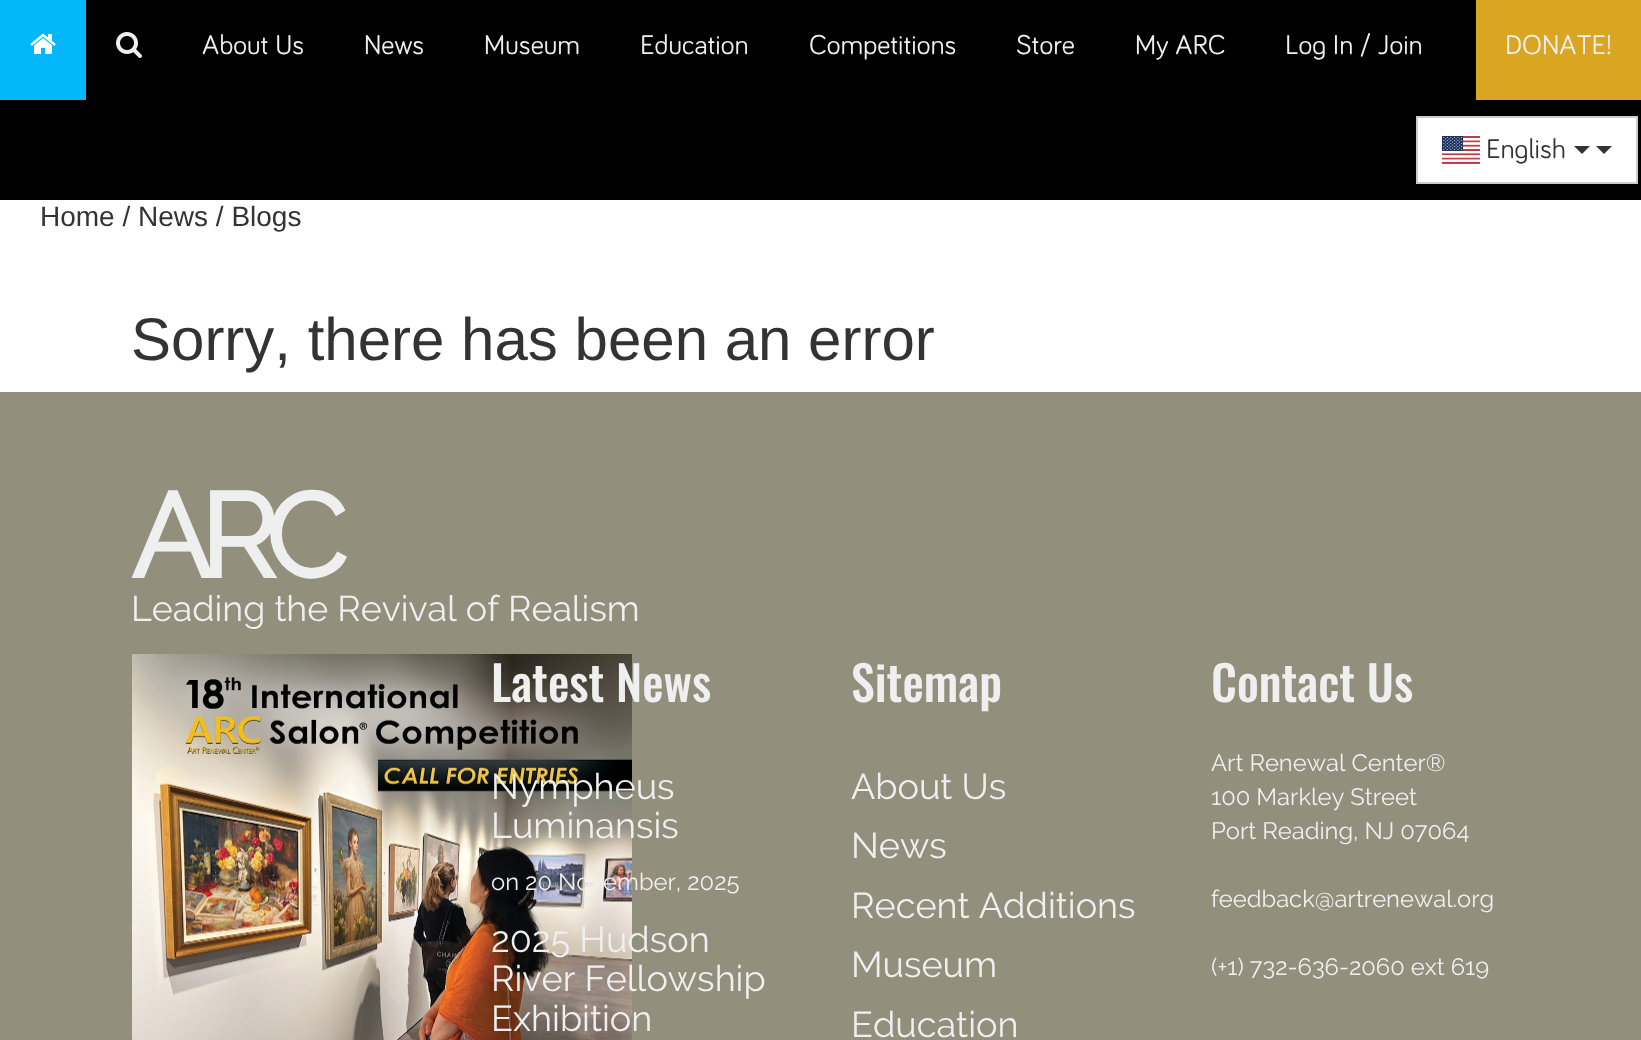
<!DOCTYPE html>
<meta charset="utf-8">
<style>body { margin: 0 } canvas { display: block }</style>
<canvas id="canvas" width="1641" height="1040"></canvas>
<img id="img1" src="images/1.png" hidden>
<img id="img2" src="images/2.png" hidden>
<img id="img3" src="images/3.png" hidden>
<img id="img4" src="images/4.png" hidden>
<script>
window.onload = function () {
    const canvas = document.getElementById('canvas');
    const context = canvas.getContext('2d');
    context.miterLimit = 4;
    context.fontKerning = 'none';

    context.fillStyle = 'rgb(255, 255, 255)';
    context.fillRect(0, 0, 1641, 1040);
    context.fillStyle = 'rgb(0, 0, 0)';
    context.fillRect(0, 0, 1641, 200);
    context.fillStyle = 'rgb(2, 184, 250)';
    context.fillRect(0, 0, 86, 100);
    context.drawImage(document.getElementById('img1'), 30, 34, 26, 20);
    context.drawImage(document.getElementById('img2'), 116, 32, 26, 26);
    context.fillStyle = 'rgb(218, 165, 32)';
    context.fillRect(1476, 0, 165, 100);
    context.fillStyle = 'rgb(255, 255, 255)';
    context.beginPath();
    context.rect(1417, 117, 220, 66);
    context.fill();
    context.strokeStyle = 'rgb(204, 204, 204)';
    context.lineWidth = 2;
    context.stroke();
    context.drawImage(document.getElementById('img3'), 1442, 136, 38, 28);
    context.fillStyle = 'rgb(51, 51, 51)';
    context.beginPath();
    context.moveTo(1574, 146);
    context.lineTo(1590, 146);
    context.lineTo(1582, 154);
    context.closePath();
    context.moveTo(1596, 146);
    context.lineTo(1612, 146);
    context.lineTo(1604, 154);
    context.closePath();
    context.fill();
    context.fillStyle = 'rgb(146, 143, 125)';
    context.fillRect(0, 392, 1641, 648);
    context.drawImage(document.getElementById('img4'), 132, 654, 500, 386);
    context.font = '28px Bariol';
    context.fillStyle = 'rgb(239, 239, 239)';
    context.fillText('About Us', 202, 54);
    context.fillText('News', 364, 54);
    context.fillText('Museum', 484, 54);
    context.fillText('Education', 640, 54);
    context.fillText('Competitions', 809, 54);
    context.fillText('Store', 1016, 54);
    context.fillText('My ARC', 1135, 54);
    context.fillText('Log In / Join', 1285, 54);
    context.fillText('DONATE!', 1505, 54);
    context.fillStyle = 'rgb(51, 51, 51)';
    context.fillText('English', 1486, 158);
    context.font = '28px Liberation Sans';
    context.fillText('Home / News / Blogs', 40, 226);
    context.font = '60px Liberation Sans';
    context.fillText('Sorry, there has been an error', 131, 360);
    context.letterSpacing = '-12px';
    context.font = 'bold 119px Raleway';
    context.fillStyle = 'rgb(239, 239, 239)';
    context.fillText('ARC', 131, 578);
    context.letterSpacing = '0px';
    context.font = '35.75px Raleway';
    context.fillText('Leading the Revival of Realism', 131, 621);
    context.font = '500 48px Oswald';
    context.fillText('Latest News', 491, 702);
    context.font = '36px Raleway';
    context.fillText('Nympheus', 491, 799);
    context.fillText('Luminansis', 491, 838);
    context.font = '23.75px Raleway';
    context.fillText('on 20 November, 2025', 491, 890);
    context.font = '36px Raleway';
    context.fillText('2025 Hudson', 491, 952);
    context.fillText('River Fellowship', 491, 991);
    context.fillText('Exhibition', 491, 1031);
    context.font = '500 48px Oswald';
    context.fillText('Sitemap', 851, 702);
    context.font = '36px Raleway';
    context.fillText('About Us', 851, 799);
    context.fillText('News', 851, 858);
    context.fillText('Recent Additions', 851, 918);
    context.fillText('Museum', 851, 977);
    context.fillText('Education', 851, 1037);
    context.font = '500 48px Oswald';
    context.fillText('Contact Us', 1211, 702);
    context.font = '23.75px Raleway';
    context.fillText('Art Renewal Center®', 1211, 771);
    context.fillText('100 Markley Street', 1211, 805);
    context.fillText('Port Reading, NJ 07064', 1211, 839);
    context.fillText('feedback@artrenewal.org', 1211, 907);
    context.fillText('(+1) 732-636-2060 ext 619', 1211, 975);
};
</script>
